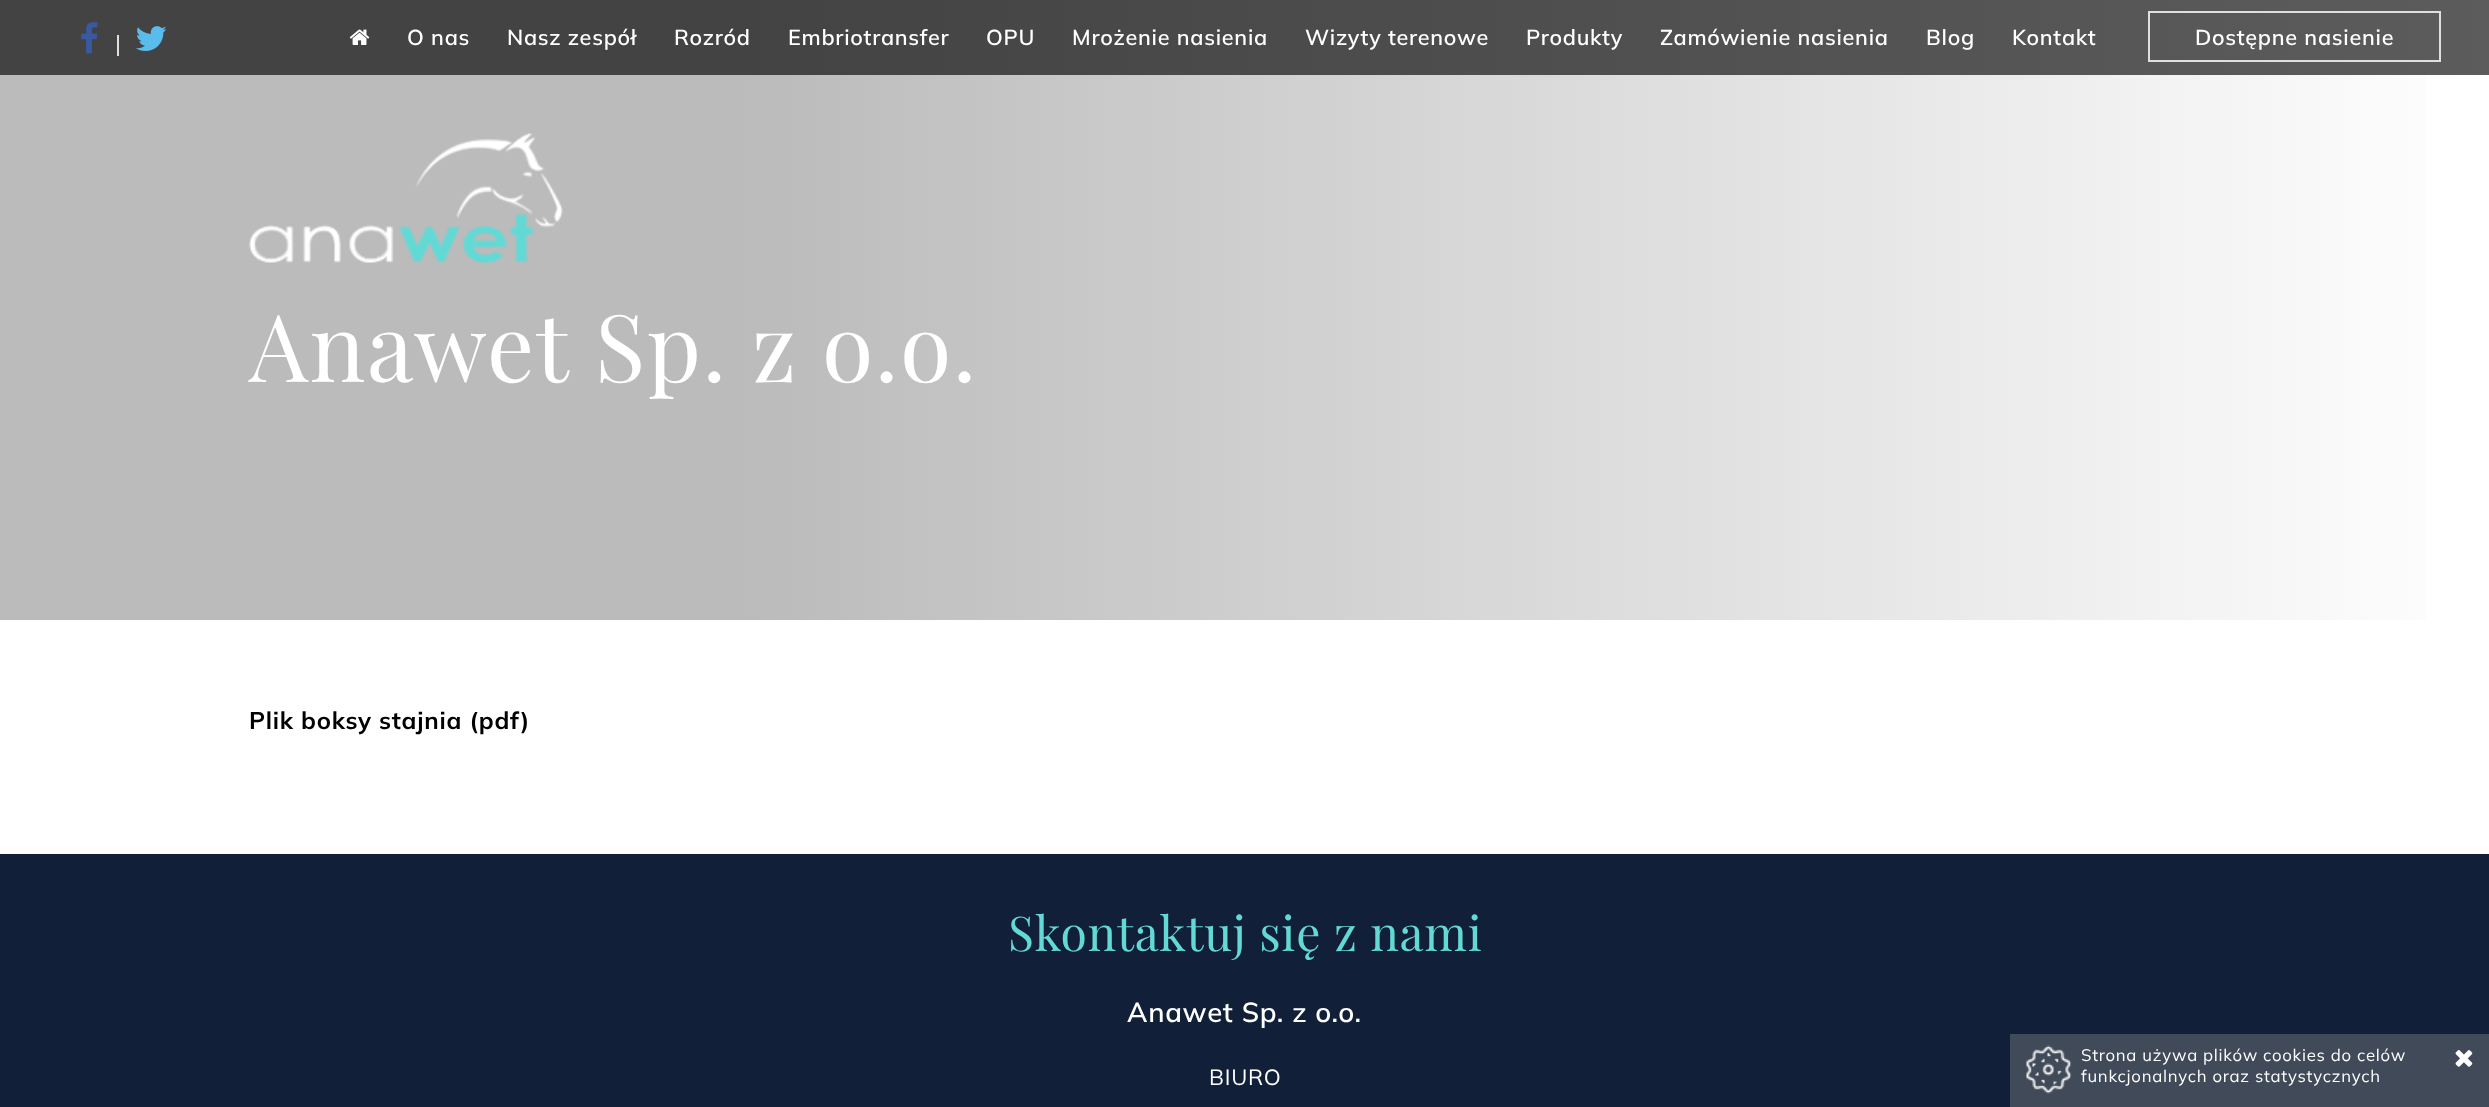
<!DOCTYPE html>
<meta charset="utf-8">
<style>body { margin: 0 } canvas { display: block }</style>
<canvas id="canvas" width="2489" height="1107"></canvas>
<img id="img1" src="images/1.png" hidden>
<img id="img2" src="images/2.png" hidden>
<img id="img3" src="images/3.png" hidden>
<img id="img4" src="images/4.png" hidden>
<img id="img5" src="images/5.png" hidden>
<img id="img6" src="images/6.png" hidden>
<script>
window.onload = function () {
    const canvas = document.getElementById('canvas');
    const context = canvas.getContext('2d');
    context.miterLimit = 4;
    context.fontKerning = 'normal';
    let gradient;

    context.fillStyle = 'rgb(255, 255, 255)';
    context.fillRect(0, 0, 2489, 1107);
    gradient = context.createLinearGradient(0, 310, 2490, 310);
    gradient.addColorStop(0.3, 'rgb(67, 67, 67)');
    gradient.addColorStop(1, 'rgb(92, 92, 92)');
    context.fillStyle = gradient;
    context.fillRect(0, 0, 2489, 75);
    context.drawImage(document.getElementById('img1'), 349, 29, 21, 16);
    context.strokeStyle = 'rgb(223, 223, 226)';
    context.lineWidth = 2;
    context.strokeRect(2149, 12, 291, 49);
    gradient = context.createLinearGradient(0, 310, 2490, 310);
    gradient.addColorStop(0.3, 'rgb(187, 187, 187)');
    gradient.addColorStop(1, 'rgb(255, 255, 255)');
    context.fillStyle = gradient;
    context.fillRect(0, 75, 2426, 545);
    context.drawImage(document.getElementById('img2'), 249, 133, 314, 130);
    context.drawImage(document.getElementById('img3'), 81, 22, 17, 32);
    context.fillStyle = 'rgb(223, 223, 226)';
    context.fillRect(117, 35, 2, 21);
    context.drawImage(document.getElementById('img4'), 136, 26, 31, 25);
    context.fillStyle = 'rgb(17, 31, 57)';
    context.fillRect(0, 854, 2489, 253);
    context.fillStyle = 'rgb(64, 74, 88)';
    context.fillRect(2010, 1034, 479, 73);
    context.drawImage(document.getElementById('img5'), 2026, 1045, 46, 49);
    context.drawImage(document.getElementById('img6'), 2455, 1050, 18, 17);
    context.letterSpacing = '0.75px';
    context.font = '600 21.6px Mulish';
    context.fillStyle = 'rgb(255, 255, 255)';
    context.fillText('O nas', 407, 45);
    context.fillText('Nasz zespół', 507, 45);
    context.fillText('Rozród', 674, 45);
    context.fillText('Embriotransfer', 788, 45);
    context.fillText('OPU', 986, 45);
    context.fillText('Mrożenie nasienia', 1072, 45);
    context.fillText('Wizyty terenowe', 1305, 45);
    context.fillText('Produkty', 1526, 45);
    context.fillText('Zamówienie nasienia', 1660, 45);
    context.fillText('Blog', 1926, 45);
    context.fillText('Kontakt', 2012, 45);
    context.fillText('Dostępne nasienie', 2195, 45);
    context.letterSpacing = '1.5px';
    context.wordSpacing = '-0.5px';
    context.font = '93.5px Playfair Display';
    context.fillText('Anawet Sp. z o.o.', 249, 382);
    context.letterSpacing = '0.75px';
    context.wordSpacing = '0px';
    context.font = 'bold 24px Mulish';
    context.fillStyle = 'rgb(0, 0, 0)';
    context.fillText('Plik boksy stajnia (pdf)', 249, 729);
    context.font = '48px Playfair Display';
    context.fillStyle = 'rgb(99, 217, 213)';
    context.fillText('Skontaktuj się z nami', 1008, 951);
    context.font = '600 27.5px Mulish';
    context.fillStyle = 'rgb(255, 255, 255)';
    context.fillText('Anawet Sp. z o.o.', 1127, 1022);
    context.font = '22px Mulish';
    context.fillText('BIURO', 1209, 1085);
    context.font = '16.75px Mulish';
    context.fillText('Strona używa plików cookies do celów', 2081, 1061);
    context.fillText('funkcjonalnych oraz statystycznych', 2081, 1082);
};
</script>
